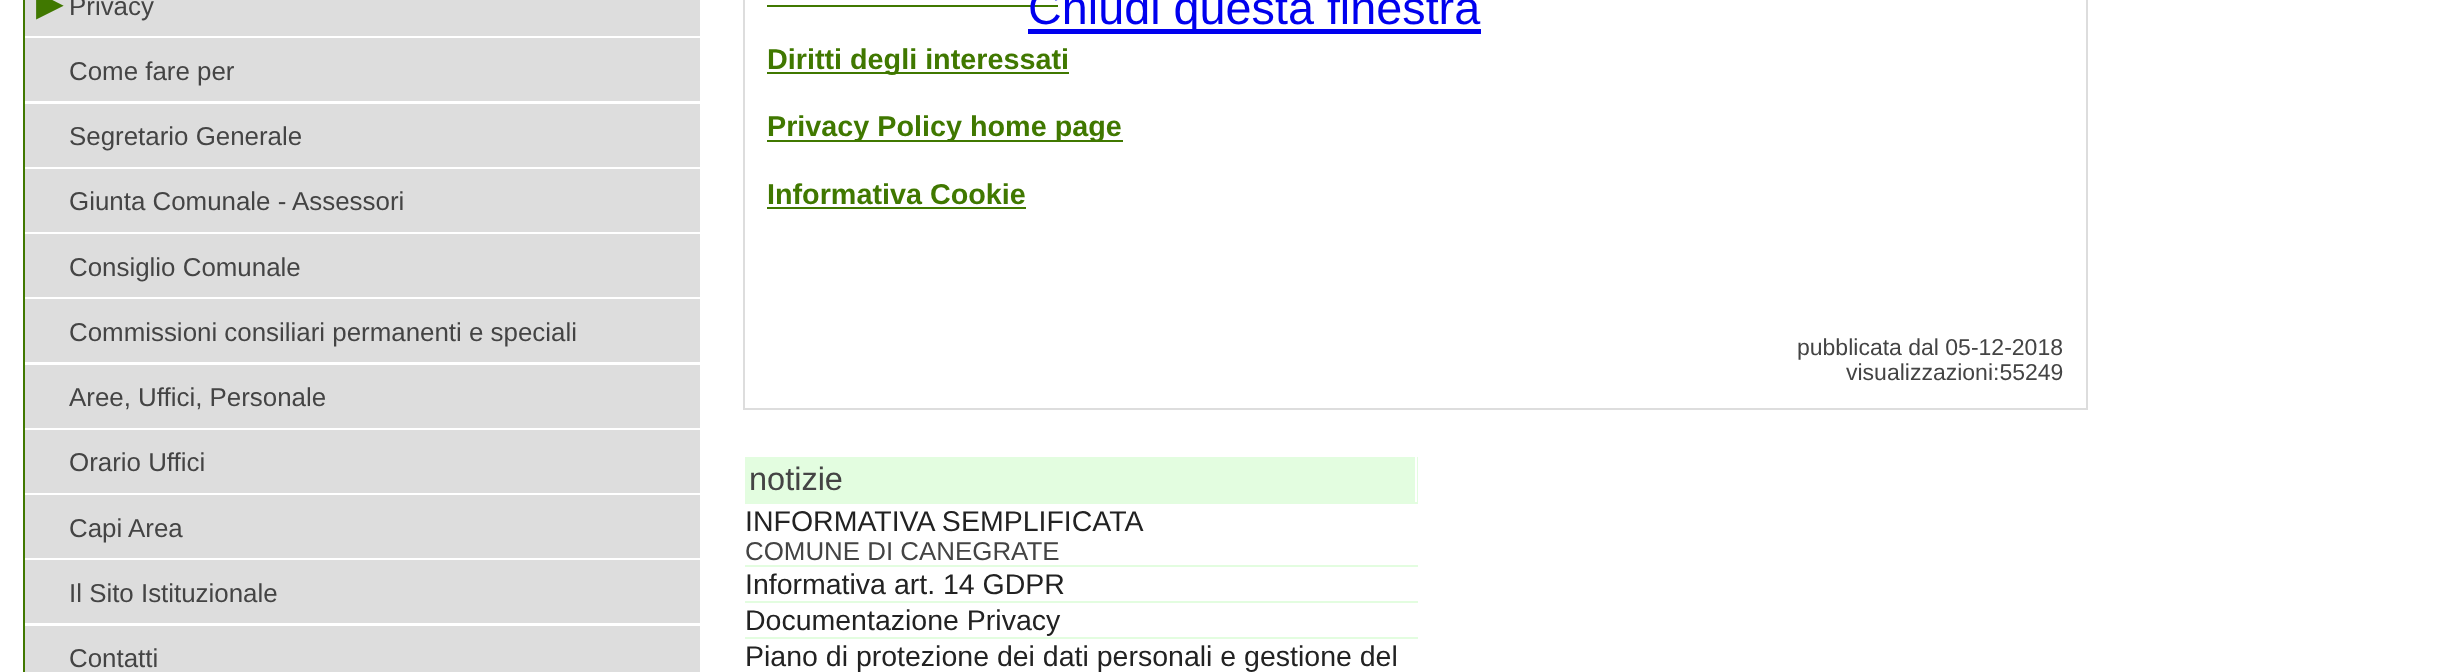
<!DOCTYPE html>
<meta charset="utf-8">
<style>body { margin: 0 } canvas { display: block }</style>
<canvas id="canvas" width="2463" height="672"></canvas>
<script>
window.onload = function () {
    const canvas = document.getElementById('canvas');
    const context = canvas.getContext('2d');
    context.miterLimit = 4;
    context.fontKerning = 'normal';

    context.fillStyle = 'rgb(255, 255, 255)';
    context.fillRect(0, 0, 2463, 672);
    context.fillStyle = 'rgb(64, 120, 0)';
    context.fillRect(23, 0, 2, 672);
    context.fillStyle = 'rgb(221, 221, 221)';
    context.fillRect(25, 0, 675, 36);
    context.fillRect(25, 38, 675, 63);
    context.fillRect(25, 104, 675, 63);
    context.fillRect(25, 169, 675, 63);
    context.fillRect(25, 234, 675, 63);
    context.fillRect(25, 299, 675, 63);
    context.fillRect(25, 365, 675, 63);
    context.fillRect(25, 430, 675, 63);
    context.fillRect(25, 495, 675, 63);
    context.fillRect(25, 560, 675, 63);
    context.fillRect(25, 626, 675, 46);
    context.strokeStyle = 'rgb(221, 221, 221)';
    context.lineWidth = 2;
    context.strokeRect(744, -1, 1343, 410);
    context.fillStyle = 'rgb(64, 120, 0)';
    context.fillRect(767, 5, 291, 2);
    context.fillRect(767, 72, 302, 2);
    context.fillRect(767, 140, 356, 2);
    context.fillRect(767, 207, 259, 2);
    context.fillStyle = 'rgb(227, 253, 224)';
    context.fillRect(745, 457, 673, 45);
    context.fillStyle = 'rgb(255, 255, 255)';
    context.fillRect(1415, 455, 2, 49);
    context.fillStyle = 'rgb(227, 253, 224)';
    context.fillRect(743, 502, 675, 2);
    context.fillStyle = 'rgb(255, 255, 255)';
    context.fillRect(743, 502, 2, 2);
    context.fillStyle = 'rgb(227, 253, 224)';
    context.fillRect(743, 565, 675, 2);
    context.fillStyle = 'rgb(255, 255, 255)';
    context.fillRect(743, 565, 2, 2);
    context.fillStyle = 'rgb(227, 253, 224)';
    context.fillRect(743, 601, 675, 2);
    context.fillStyle = 'rgb(255, 255, 255)';
    context.fillRect(743, 601, 2, 2);
    context.fillStyle = 'rgb(227, 253, 224)';
    context.fillRect(743, 637, 675, 2);
    context.fillStyle = 'rgb(255, 255, 255)';
    context.fillRect(743, 637, 2, 2);
    context.fillStyle = 'rgb(0, 0, 238)';
    context.fillRect(1028, 29, 453, 5);
    context.font = 'bold 34px DejaVu Sans';
    context.fillStyle = 'rgb(64, 120, 0)';
    context.fillText('▶', 36, 15);
    context.font = '25.9px Liberation Sans';
    context.fillStyle = 'rgb(68, 68, 68)';
    context.fillText('Privacy', 69, 15);
    context.fillText('Come fare per', 69, 80);
    context.fillText('Segretario Generale', 69, 145);
    context.fillText('Giunta Comunale - Assessori', 69, 210);
    context.fillText('Consiglio Comunale', 69, 276);
    context.fillText('Commissioni consiliari permanenti e speciali', 69, 341);
    context.fillText('Aree, Uffici, Personale', 69, 406);
    context.fillText('Orario Uffici', 69, 471);
    context.fillText('Capi Area', 69, 537);
    context.fillText('Il Sito Istituzionale', 69, 602);
    context.fillText('Contatti', 69, 667);
    context.font = 'bold 28.75px Liberation Sans';
    context.fillStyle = 'rgb(64, 120, 0)';
    context.fillText('Diritti degli interessati', 767, 69);
    context.fillText('Privacy Policy home page', 767, 136);
    context.fillText('Informativa Cookie', 767, 204);
    context.font = '23px Liberation Sans';
    context.fillStyle = 'rgb(68, 68, 68)';
    context.fillText('pubblicata dal 05-12-2018', 1797, 355);
    context.fillText('visualizzazioni:55249', 1846, 380);
    context.font = '32.5px Liberation Sans';
    context.fillText('notizie', 749, 490);
    context.font = '28.5px Liberation Sans';
    context.fillStyle = 'rgb(34, 34, 34)';
    context.fillText('INFORMATIVA SEMPLIFICATA', 745, 531);
    context.font = '25.9px Liberation Sans';
    context.fillStyle = 'rgb(68, 68, 68)';
    context.fillText('COMUNE DI CANEGRATE', 745, 560);
    context.font = '28.5px Liberation Sans';
    context.fillStyle = 'rgb(34, 34, 34)';
    context.fillText('Informativa art. 14 GDPR', 745, 594);
    context.fillText('Documentazione Privacy', 745, 630);
    context.fillText('Piano di protezione dei dati personali e gestione del', 745, 666);
    context.font = '46.75px Liberation Sans';
    context.fillStyle = 'rgb(0, 0, 238)';
    context.fillText('Chiudi questa finestra', 1028, 24);
};
</script>
